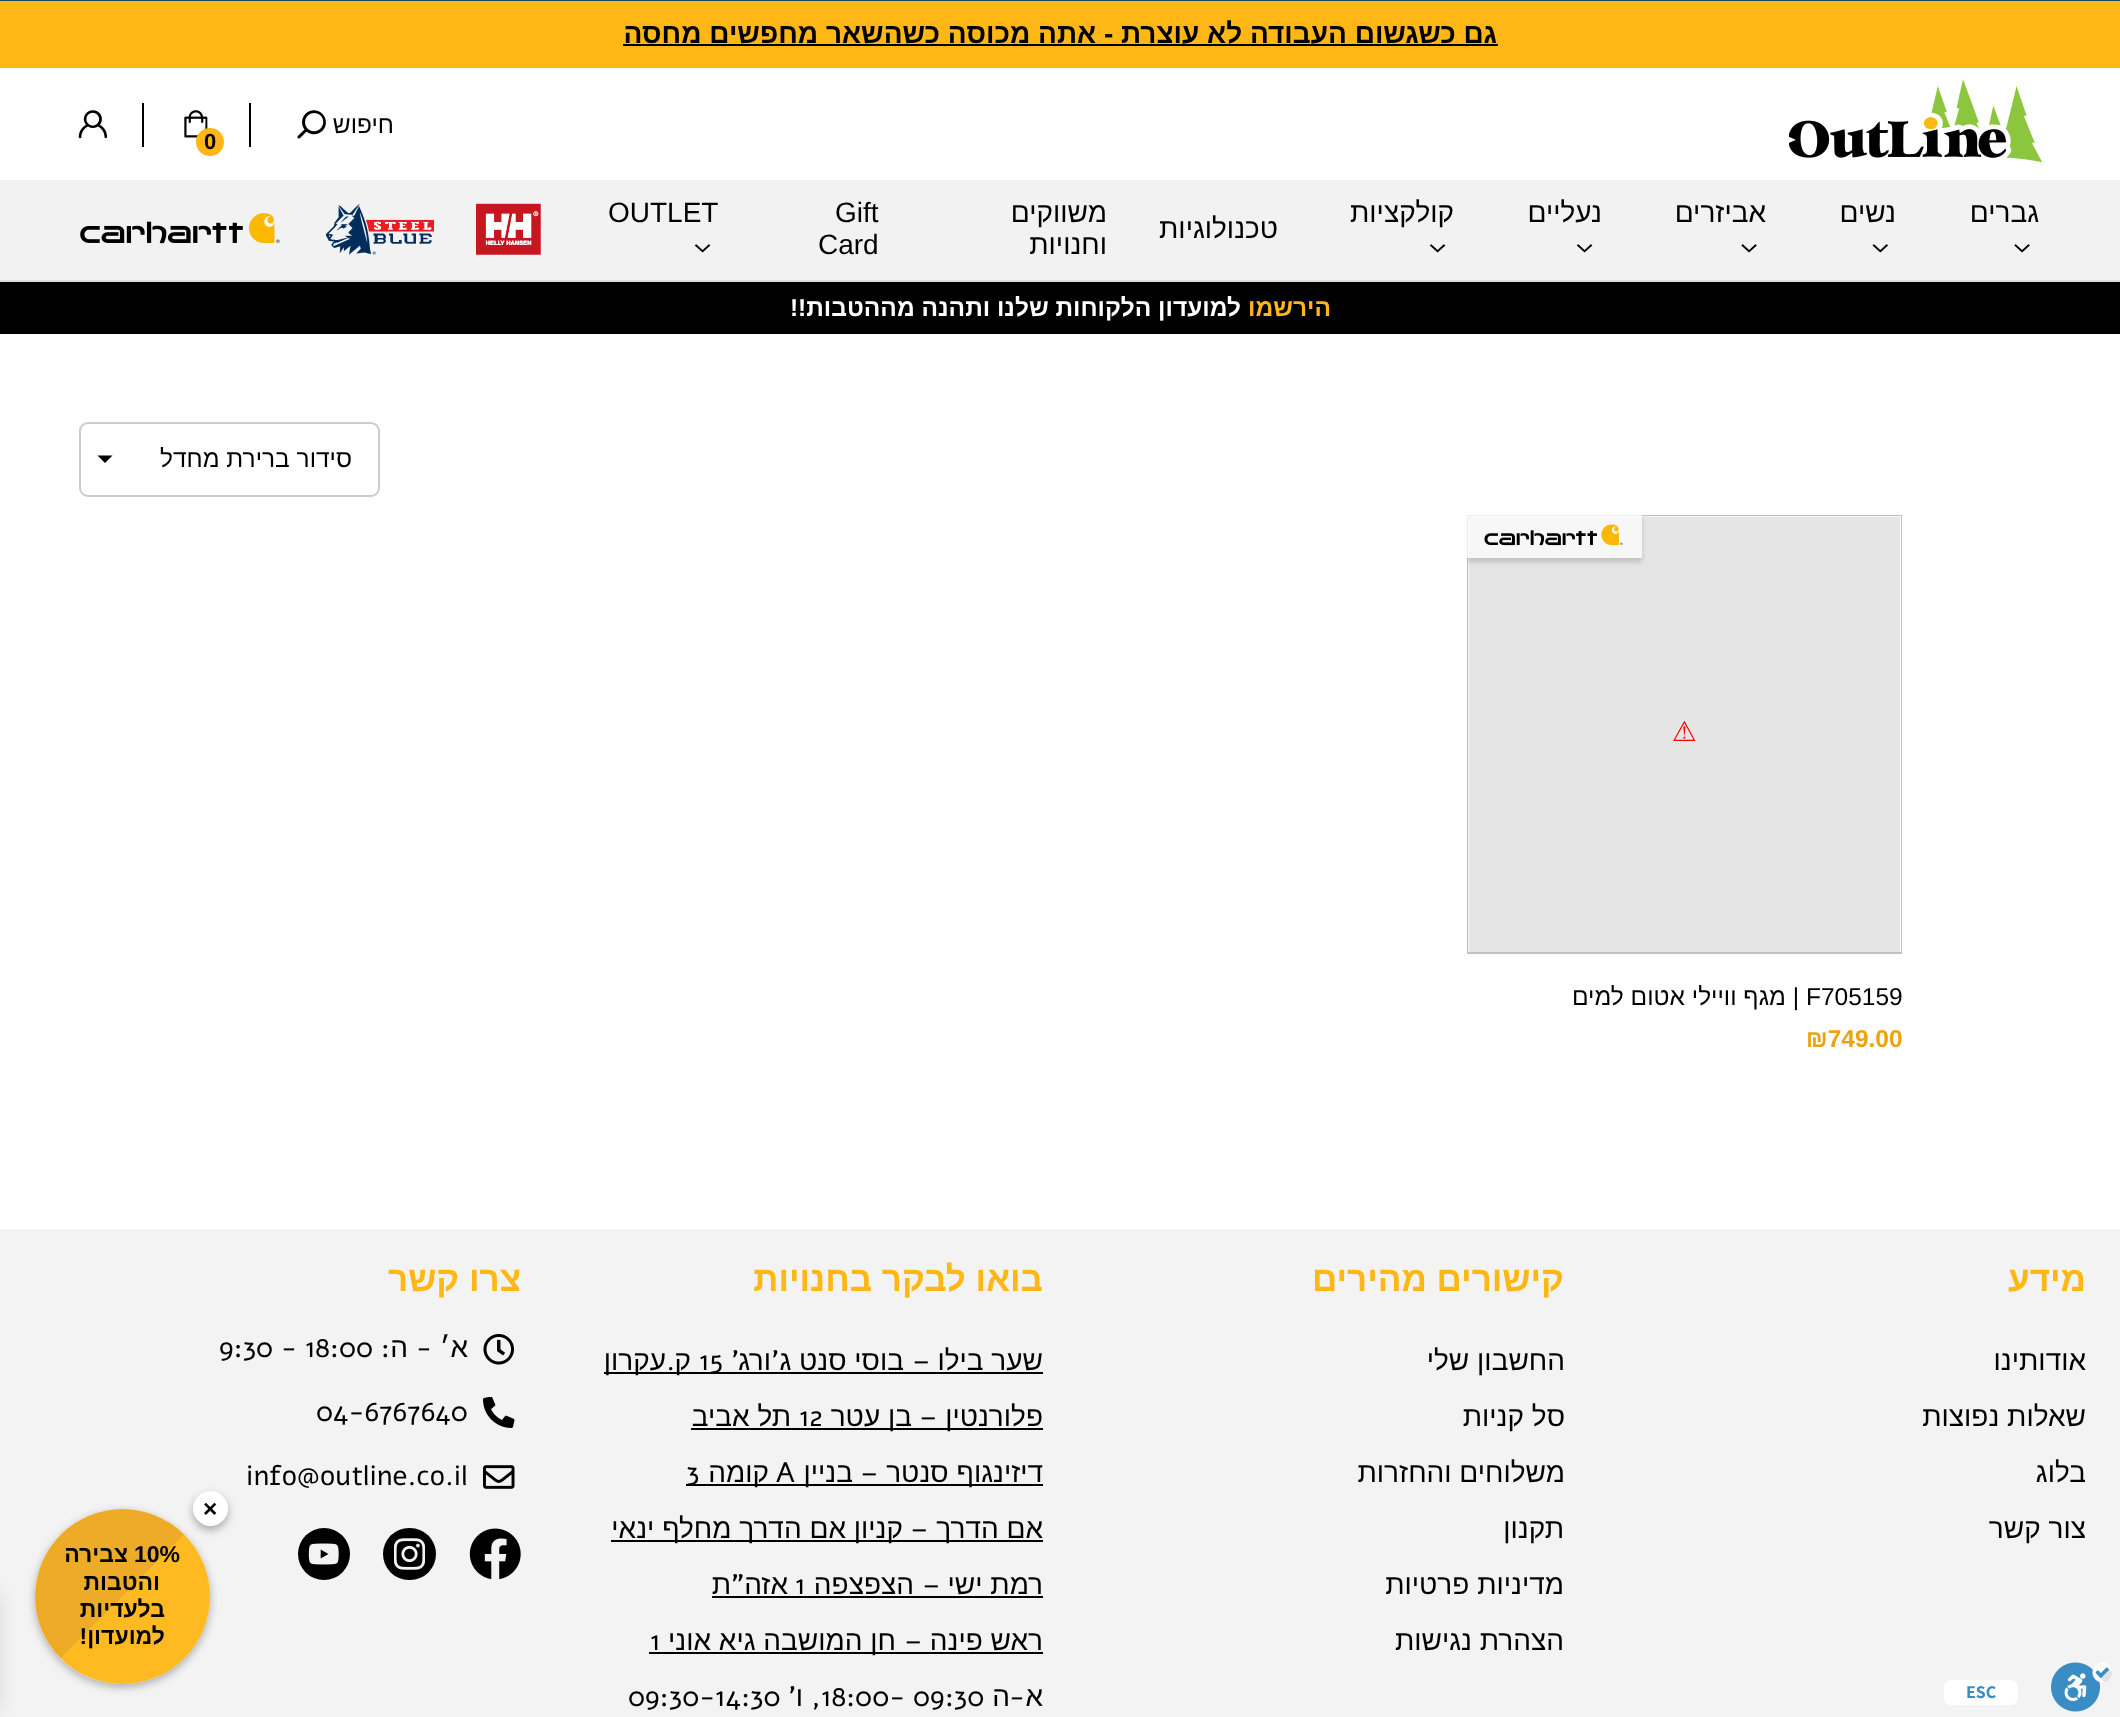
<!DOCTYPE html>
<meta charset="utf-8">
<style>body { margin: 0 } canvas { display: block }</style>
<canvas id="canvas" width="2120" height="1717"></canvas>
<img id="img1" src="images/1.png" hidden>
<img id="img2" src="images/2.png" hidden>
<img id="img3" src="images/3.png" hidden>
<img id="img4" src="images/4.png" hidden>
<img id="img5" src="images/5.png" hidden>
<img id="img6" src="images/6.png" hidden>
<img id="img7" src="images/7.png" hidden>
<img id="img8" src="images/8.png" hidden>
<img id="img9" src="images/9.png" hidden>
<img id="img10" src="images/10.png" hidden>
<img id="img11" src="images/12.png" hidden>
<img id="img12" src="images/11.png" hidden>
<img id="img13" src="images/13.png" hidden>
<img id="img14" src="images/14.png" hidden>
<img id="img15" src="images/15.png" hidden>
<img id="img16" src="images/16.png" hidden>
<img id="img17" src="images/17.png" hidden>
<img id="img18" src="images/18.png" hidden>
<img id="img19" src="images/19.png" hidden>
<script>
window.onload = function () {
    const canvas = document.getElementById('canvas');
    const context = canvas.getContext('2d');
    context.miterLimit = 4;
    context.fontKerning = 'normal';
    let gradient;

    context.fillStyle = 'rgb(255, 255, 255)';
    context.fillRect(0, 0, 2120, 1717);
    context.fillStyle = 'rgb(255, 183, 21)';
    context.fillRect(0, 1, 2120, 67);
    context.fillStyle = 'rgb(0, 0, 0)';
    context.fillRect(623, 44, 875, 2);
    context.drawImage(document.getElementById('img1'), 1789, 79, 253, 84);
    context.drawImage(document.getElementById('img2'), 297, 110, 29, 29);
    context.fillRect(249, 103, 2, 44);
    context.drawImage(document.getElementById('img3'), 184, 110, 24, 28);
    context.fillStyle = 'rgb(255, 183, 21)';
    context.beginPath();
    context.arc(210, 142, 14, 0, 2 * Math.PI);
    context.fill();
    context.fillStyle = 'rgb(0, 0, 0)';
    context.fillRect(142, 103, 2, 44);
    context.drawImage(document.getElementById('img4'), 78, 110, 30, 29);
    context.fillStyle = 'rgb(242, 242, 242)';
    context.fillRect(0, 180, 2120, 100);
    context.fillStyle = 'rgb(221, 221, 221)';
    context.fillRect(0, 280, 2120, 2);
    context.drawImage(document.getElementById('img5'), 2014, 244, 16, 9);
    context.drawImage(document.getElementById('img6'), 1872, 244, 16, 9);
    context.drawImage(document.getElementById('img5'), 1741, 244, 16, 9);
    context.drawImage(document.getElementById('img7'), 1576, 244, 17, 9);
    context.drawImage(document.getElementById('img7'), 1429, 244, 17, 9);
    context.drawImage(document.getElementById('img7'), 694, 244, 17, 9);
    context.drawImage(document.getElementById('img8'), 476, 203, 65, 52);
    context.drawImage(document.getElementById('img9'), 326, 204, 108, 51);
    context.drawImage(document.getElementById('img10'), 80, 213, 200, 31);
    context.fillStyle = 'rgb(0, 0, 0)';
    context.fillRect(0, 282, 2120, 52);
    context.beginPath();
    context.moveTo(97.5, 455.5);
    context.lineTo(105, 463);
    context.lineTo(112.5, 455.5);
    context.closePath();
    context.fill();
    context.beginPath();
    context.roundRect(80, 423, 299, 73, 8);
    context.strokeStyle = 'rgb(204, 204, 204)';
    context.lineWidth = 2;
    context.stroke();
    context.strokeStyle = 'rgb(194, 193, 193)';
    context.strokeRect(1468, 516, 433, 437);
    context.fillStyle = 'rgb(255, 255, 255)';
    context.fillRect(1468, 516, 433, 436);
    context.drawImage(document.getElementById('img11'), 1468, 516, 432, 436);
    context.save();
    context.beginPath();
    context.rect(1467, 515, 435, 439);
    context.clip();
    context.beginPath();
    context.moveTo(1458, 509);
    context.lineTo(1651, 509);
    context.lineTo(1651, 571);
    context.lineTo(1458, 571);
    context.closePath();
    context.moveTo(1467, 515);
    context.lineTo(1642, 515);
    context.lineTo(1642, 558);
    context.lineTo(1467, 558);
    context.closePath();
    context.clip('evenodd');
    context.fillStyle = 'rgba(0, 0, 0, 0.16)';
    context.filter = 'blur(2.5px)';
    context.beginPath();
    context.rect(1467, 518, 175, 44);
    context.fill();
    context.filter = 'none';
    context.restore();
    context.fillStyle = 'rgba(255, 255, 255, 0.7)';
    context.fillRect(1467, 515, 175, 43);
    context.drawImage(document.getElementById('img12'), 1484, 524, 139, 22);
    context.fillStyle = 'rgb(244, 243, 243)';
    context.fillRect(0, 1229, 2120, 488);
    context.fillStyle = 'rgb(0, 0, 0)';
    context.fillRect(604, 1372, 439, 2);
    context.fillRect(691, 1428, 352, 2);
    context.fillRect(686, 1484, 357, 2);
    context.fillRect(611, 1540, 432, 2);
    context.fillRect(712, 1596, 331, 2);
    context.fillRect(649, 1652, 394, 2);
    context.drawImage(document.getElementById('img13'), 483, 1334, 31, 31);
    context.drawImage(document.getElementById('img14'), 483, 1397, 32, 31);
    context.drawImage(document.getElementById('img15'), 483, 1465, 32, 24);
    context.drawImage(document.getElementById('img16'), 469, 1528, 52, 52);
    context.beginPath();
    context.roundRect(383, 1528, 53, 52, 26);
    context.fill();
    context.drawImage(document.getElementById('img17'), 394, 1538, 31, 32);
    context.beginPath();
    context.arc(324, 1554, 26, 0, 2 * Math.PI);
    context.fill();
    context.drawImage(document.getElementById('img18'), 308, 1543, 31, 22);
    context.save();
    context.beginPath();
    context.moveTo(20, 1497);
    context.lineTo(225, 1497);
    context.lineTo(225, 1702);
    context.lineTo(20, 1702);
    context.closePath();
    context.moveTo(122.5, 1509);
    context.bezierCurveTo(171, 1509, 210, 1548, 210, 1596.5);
    context.bezierCurveTo(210, 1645, 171, 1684, 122.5, 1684);
    context.bezierCurveTo(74, 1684, 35, 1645, 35, 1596.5);
    context.bezierCurveTo(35, 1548, 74, 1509, 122.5, 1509);
    context.closePath();
    context.clip('evenodd');
    context.fillStyle = 'rgba(0, 0, 0, 0.3)';
    context.filter = 'blur(4.5px)';
    context.beginPath();
    context.roundRect(35, 1512, 175, 175, 87.5);
    context.fill();
    context.filter = 'none';
    context.restore();
    gradient = context.createLinearGradient(210, 1684, 35, 1509);
    gradient.addColorStop(0.5, 'rgba(255, 183, 21, 0.95)');
    gradient.addColorStop(0.5, 'rgba(236, 163, 16, 0.9)');
    context.fillStyle = gradient;
    context.beginPath();
    context.arc(122.5, 1596.5, 87.5, 0, 2 * Math.PI);
    context.fill();
    context.fillStyle = 'rgba(0, 0, 0, 0.3)';
    context.filter = 'blur(4.5px)';
    context.beginPath();
    context.roundRect(193, 1495, 35, 35, 17.5);
    context.fill();
    context.filter = 'none';
    context.fillStyle = 'rgb(255, 255, 255)';
    context.beginPath();
    context.arc(210.5, 1508.5, 17.5, 0, 2 * Math.PI);
    context.fill();
    context.fillStyle = 'rgba(0, 0, 0, 0.1)';
    context.filter = 'blur(9px)';
    context.beginPath();
    context.rect(-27, 1594, 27, 116);
    context.fill();
    context.filter = 'none';
    context.fillStyle = 'rgb(21, 73, 95)';
    context.fillRect(0, 0, 2120, 1);
    context.drawImage(document.getElementById('img19'), 2051, 1662, 62, 50);
    context.fillStyle = 'rgb(255, 255, 255)';
    context.beginPath();
    context.roundRect(1944, 1680, 74, 25, 7);
    context.fill();
    context.direction = 'rtl';
    context.font = 'bold 28px Liberation Sans';
    context.fillStyle = 'rgb(0, 0, 0)';
    context.fillText('גם כשגשום העבודה לא עוצרת - אתה מכוסה כשהשאר מחפשים מחסה', 1497, 43);
    context.font = '24.5px Liberation Sans';
    context.fillText('חיפוש', 394, 133);
    context.direction = 'ltr';
    context.font = 'bold 22px Liberation Sans';
    context.fillText('0', 204, 149);
    context.direction = 'rtl';
    context.font = '28px Liberation Sans';
    context.fillText('גברים', 2039, 222);
    context.fillText('נשים', 1896, 222);
    context.fillText('אביזרים', 1766, 222);
    context.fillText('נעליים', 1602, 222);
    context.fillText('קולקציות', 1454, 222);
    context.fillText('טכנולוגיות', 1278, 238);
    context.fillText('משווקים', 1107, 222);
    context.fillText('וחנויות', 1107, 254);
    context.direction = 'ltr';
    context.fillText('Gift', 835, 222);
    context.fillText('Card', 818, 254);
    context.fillText('OUTLET', 608, 222);
    context.direction = 'rtl';
    context.font = 'bold 24.5px Liberation Sans';
    context.fillStyle = 'rgb(255, 183, 21)';
    context.fillText('הירשמו', 1331, 316);
    context.fillStyle = 'rgb(255, 255, 255)';
    context.fillText('למועדון הלקוחות שלנו ותהנה מההטבות!!', 1241, 316);
    context.font = '24.5px Liberation Sans';
    context.fillStyle = 'rgb(0, 0, 0)';
    context.fillText('סידור ברירת מחדל', 352, 467);
    context.direction = 'ltr';
    context.fillText('F705159', 1806, 1005);
    context.direction = 'rtl';
    context.fillText('| מגף וויילי אטום למים', 1799, 1005);
    context.direction = 'ltr';
    context.font = 'bold 24.5px Liberation Sans';
    context.fillStyle = 'rgb(236, 163, 16)';
    context.fillText('₪749.00', 1806, 1047);
    context.direction = 'rtl';
    context.font = 'bold 35px Liberation Sans';
    context.fillStyle = 'rgb(255, 183, 21)';
    context.fillText('מידע', 2086, 1291);
    context.font = '28px Liberation Sans';
    context.fillStyle = 'rgb(0, 0, 0)';
    context.fillText('אודותינו', 2086, 1370);
    context.fillText('שאלות נפוצות', 2086, 1426);
    context.fillText('בלוג', 2086, 1482);
    context.fillText('צור קשר', 2086, 1538);
    context.font = 'bold 35px Liberation Sans';
    context.fillStyle = 'rgb(255, 183, 21)';
    context.fillText('קישורים מהירים', 1564, 1291);
    context.font = '28px Liberation Sans';
    context.fillStyle = 'rgb(0, 0, 0)';
    context.fillText('החשבון שלי', 1565, 1370);
    context.fillText('סל קניות', 1565, 1426);
    context.fillText('משלוחים והחזרות', 1565, 1482);
    context.fillText('תקנון', 1564, 1538);
    context.fillText('מדיניות פרטיות', 1564, 1594);
    context.fillText('הצהרת נגישות', 1564, 1650);
    context.font = 'bold 35px Liberation Sans';
    context.fillStyle = 'rgb(255, 183, 21)';
    context.fillText('בואו לבקר בחנויות', 1043, 1291);
    context.font = '28px Liberation Sans';
    context.fillStyle = 'rgb(0, 0, 0)';
    context.fillText('שער בילו', 1043, 1370);
    context.font = '28px Alef';
    context.fillText('–', 930, 1370);
    context.font = '28px Liberation Sans';
    context.fillText('בוסי סנט ג', 904, 1370);
    context.font = '28px Alef';
    context.fillText('\'', 779, 1370);
    context.font = '28px Liberation Sans';
    context.fillText('ורג', 771, 1370);
    context.font = '28px Alef';
    context.fillText('\'', 739, 1370);
    context.direction = 'ltr';
    context.fillText('15', 699, 1370);
    context.direction = 'rtl';
    context.font = '28px Liberation Sans';
    context.fillText('ק', 691, 1370);
    context.fillText('עקרון', 666, 1370);
    context.font = '28px Alef';
    context.fillText('.', 675, 1370);
    context.font = '28px Liberation Sans';
    context.fillText('פלורנטין', 1043, 1426);
    context.font = '28px Alef';
    context.fillText('–', 937, 1426);
    context.font = '28px Liberation Sans';
    context.fillText('בן עטר', 912, 1426);
    context.direction = 'ltr';
    context.font = '28px Alef';
    context.fillText('12', 799, 1426);
    context.direction = 'rtl';
    context.font = '28px Liberation Sans';
    context.fillText('תל אביב', 791, 1426);
    context.fillText('דיזינגוף סנטר', 1043, 1482);
    context.font = '28px Alef';
    context.fillText('–', 878, 1482);
    context.font = '28px Liberation Sans';
    context.fillText('בניין', 853, 1482);
    context.direction = 'ltr';
    context.font = '28px Alef';
    context.fillText('A', 776, 1482);
    context.direction = 'rtl';
    context.font = '28px Liberation Sans';
    context.fillText('קומה', 769, 1482);
    context.direction = 'ltr';
    context.font = '28px Alef';
    context.fillText('3', 686, 1482);
    context.direction = 'rtl';
    context.font = '28px Liberation Sans';
    context.fillText('אם הדרך', 1043, 1538);
    context.font = '28px Alef';
    context.fillText('–', 928, 1538);
    context.font = '28px Liberation Sans';
    context.fillText('קניון אם הדרך מחלף ינאי', 903, 1538);
    context.fillText('רמת ישי', 1043, 1594);
    context.font = '28px Alef';
    context.fillText('–', 940, 1594);
    context.font = '28px Liberation Sans';
    context.fillText('הצפצפה', 914, 1594);
    context.direction = 'ltr';
    context.font = '28px Alef';
    context.fillText('1', 795, 1594);
    context.direction = 'rtl';
    context.font = '28px Liberation Sans';
    context.fillText('אזה', 788, 1594);
    context.font = '28px Alef';
    context.fillText('"', 744, 1594);
    context.font = '28px Liberation Sans';
    context.fillText('ת', 731, 1594);
    context.fillText('ראש פינה', 1043, 1650);
    context.font = '28px Alef';
    context.fillText('–', 922, 1650);
    context.font = '28px Liberation Sans';
    context.fillText('חן המושבה גיא אוני', 896, 1650);
    context.direction = 'ltr';
    context.font = '28px Alef';
    context.fillText('1', 650, 1650);
    context.direction = 'rtl';
    context.font = '28px Liberation Sans';
    context.fillText('א', 1043, 1706);
    context.font = '28px Alef';
    context.fillText('-', 1025, 1706);
    context.font = '28px Liberation Sans';
    context.fillText('ה', 1010, 1706);
    context.direction = 'ltr';
    context.font = '28px Alef';
    context.fillText('18:00- 09:30', 821, 1706);
    context.direction = 'rtl';
    context.font = '28px Liberation Sans';
    context.fillText('ו', 803, 1706);
    context.font = '28px Alef';
    context.fillText('\'', 796, 1706);
    context.direction = 'ltr';
    context.fillText('09:30-14:30', 628, 1706);
    context.direction = 'rtl';
    context.fillText(',', 821, 1706);
    context.font = 'bold 35px Liberation Sans';
    context.fillStyle = 'rgb(255, 183, 21)';
    context.fillText('צרו קשר', 521, 1291);
    context.font = '28px Liberation Sans';
    context.fillStyle = 'rgb(0, 0, 0)';
    context.fillText('א׳', 468, 1357);
    context.font = '28px Alef';
    context.fillText('-', 432, 1357);
    context.font = '28px Liberation Sans';
    context.fillText('ה', 408, 1357);
    context.font = '28px Alef';
    context.fillText(':', 390, 1357);
    context.direction = 'ltr';
    context.fillText('9:30 - 18:00', 219, 1357);
    context.fillText('04-6767640', 316, 1421);
    context.fillText('info@outline.co.il', 246, 1485);
    context.font = 'bold 24.5px Liberation Sans';
    context.fillText('×', 203, 1517);
    context.font = 'bold 23px Liberation Sans';
    context.fillText('10%', 134, 1562);
    context.direction = 'rtl';
    context.fillText('צבירה', 128, 1562);
    context.fillText('והטבות', 160, 1590);
    context.fillText('בלעדיות', 165, 1617);
    context.fillText('למועדון!', 165, 1644);
    context.direction = 'ltr';
    context.font = 'bold 18px Assistant';
    context.fillStyle = 'rgb(58, 141, 194)';
    context.fillText('ESC', 1966, 1698);
};
</script>
